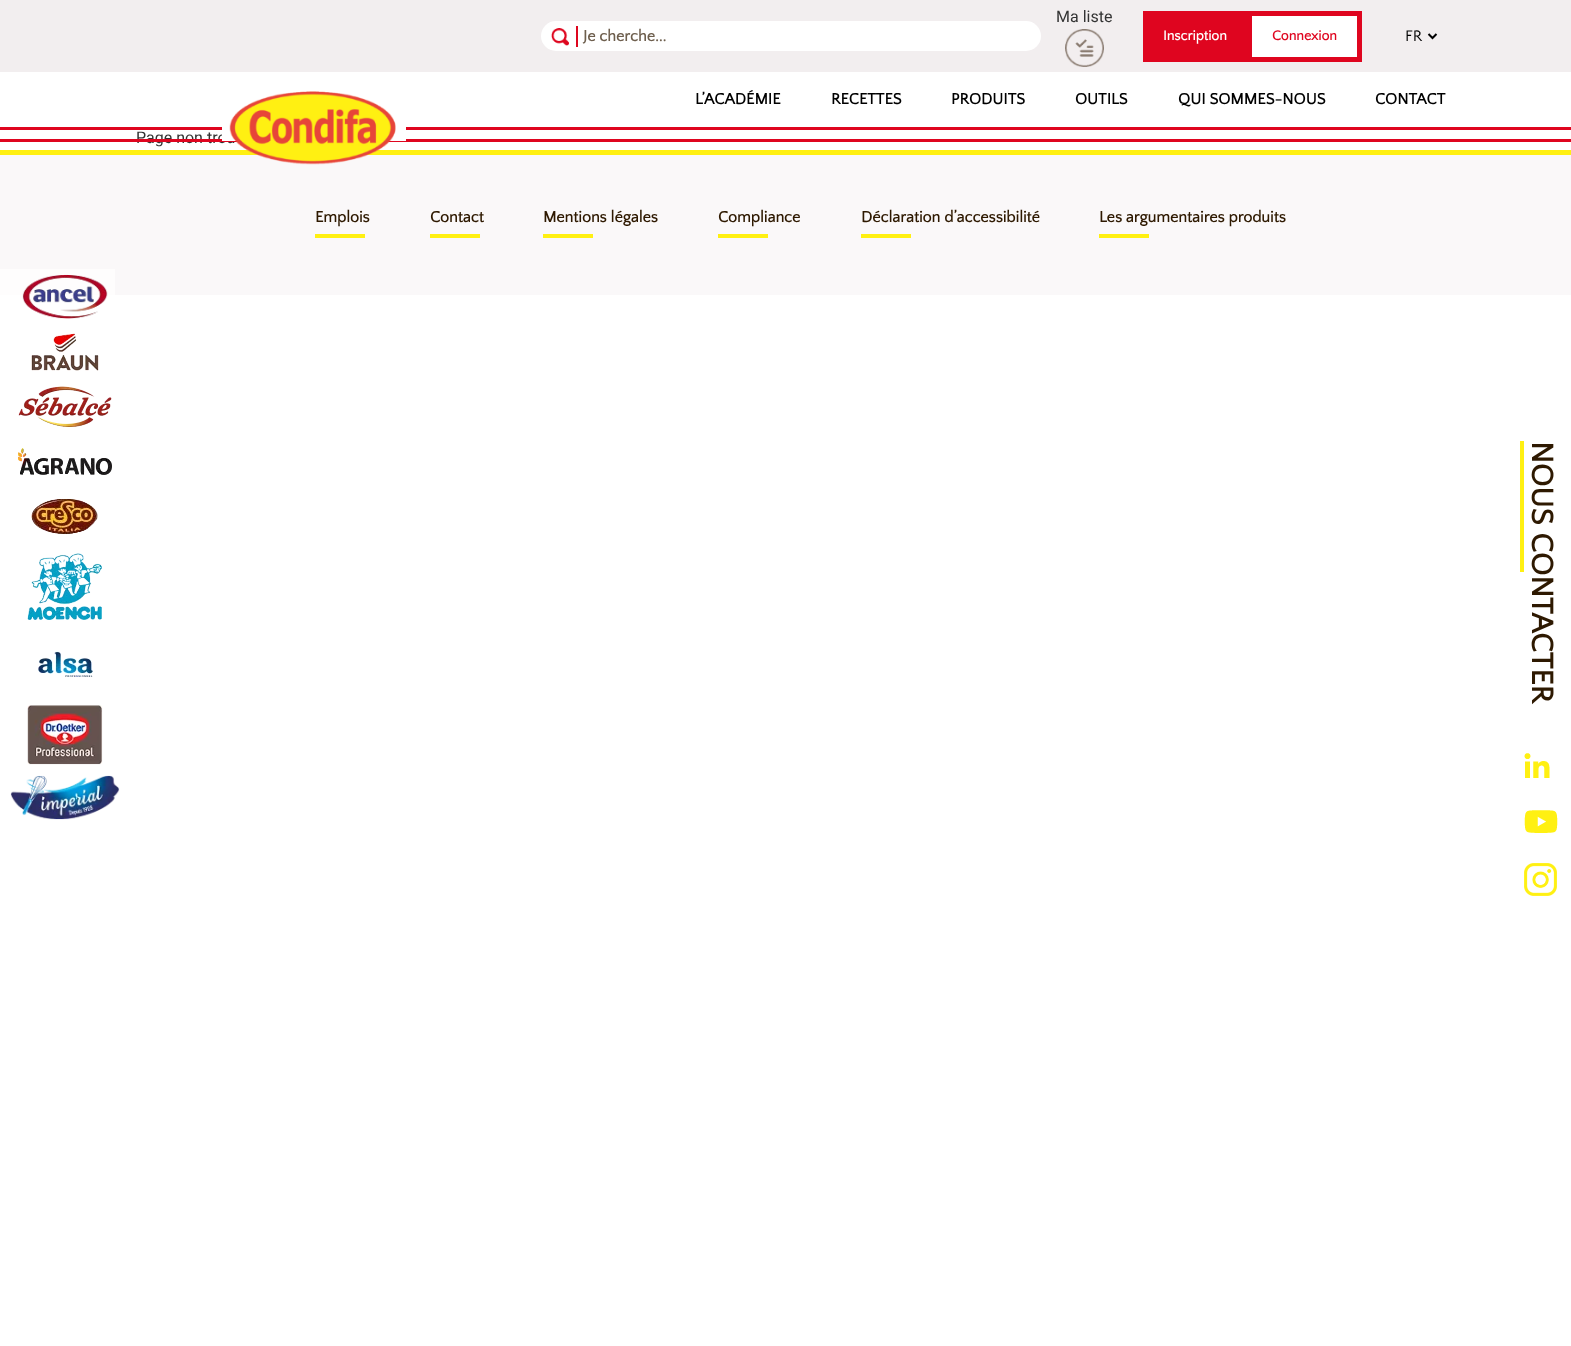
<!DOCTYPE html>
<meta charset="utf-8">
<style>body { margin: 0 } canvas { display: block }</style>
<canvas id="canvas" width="1571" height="1346"></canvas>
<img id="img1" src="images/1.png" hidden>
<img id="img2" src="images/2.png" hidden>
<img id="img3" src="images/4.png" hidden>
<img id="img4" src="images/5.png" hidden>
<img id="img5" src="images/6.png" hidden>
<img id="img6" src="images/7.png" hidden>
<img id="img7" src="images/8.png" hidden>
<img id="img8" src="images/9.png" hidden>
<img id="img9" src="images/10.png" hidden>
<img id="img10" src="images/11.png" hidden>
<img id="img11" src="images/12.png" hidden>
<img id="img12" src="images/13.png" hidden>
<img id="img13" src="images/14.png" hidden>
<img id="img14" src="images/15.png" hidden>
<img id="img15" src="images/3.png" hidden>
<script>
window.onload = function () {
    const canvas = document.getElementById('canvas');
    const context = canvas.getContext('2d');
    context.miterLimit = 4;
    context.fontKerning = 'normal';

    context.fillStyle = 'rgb(255, 255, 255)';
    context.fillRect(0, 0, 1571, 1346);
    context.fillStyle = 'rgb(242, 238, 239)';
    context.fillRect(0, 0, 1571, 72);
    context.drawImage(document.getElementById('img1'), 1065, 29, 39, 38);
    context.fillStyle = 'rgb(255, 255, 255)';
    context.beginPath();
    context.roundRect(541, 21, 500, 30, 15);
    context.fill();
    context.drawImage(document.getElementById('img2'), 551, 28, 18, 18);
    context.fillStyle = 'rgb(222, 6, 31)';
    context.fillRect(576, 26, 2, 21);
    context.fillStyle = 'rgb(223, 5, 31)';
    context.fillRect(1143, 11, 104, 51);
    context.fillStyle = 'rgb(255, 255, 255)';
    context.beginPath();
    context.rect(1249.5, 13.5, 110, 46);
    context.fill();
    context.strokeStyle = 'rgb(223, 5, 31)';
    context.lineWidth = 5;
    context.stroke();
    context.beginPath();
    context.moveTo(1428.5, 34);
    context.lineTo(1432.5, 38);
    context.lineTo(1436.5, 34);
    context.strokeStyle = 'rgb(0, 0, 0)';
    context.lineWidth = 2;
    context.stroke();
    context.fillStyle = 'rgb(223, 5, 31)';
    context.fillRect(0, 127, 1571, 3);
    context.fillStyle = 'rgb(250, 248, 249)';
    context.fillRect(0, 155, 1571, 140);
    context.fillStyle = 'rgb(254, 253, 253)';
    context.fillRect(0, 269, 115, 26);
    context.fillStyle = 'rgb(255, 240, 18)';
    context.fillRect(0, 150, 1571, 5);
    context.fillRect(315, 234, 50, 4);
    context.fillRect(430, 234, 50, 4);
    context.fillRect(543, 234, 50, 4);
    context.fillRect(718, 234, 50, 4);
    context.fillRect(861, 234, 50, 4);
    context.fillRect(1099, 234, 50, 4);
    context.drawImage(document.getElementById('img3'), 22, 274, 86, 45);
    context.drawImage(document.getElementById('img4'), 31, 333, 68, 38);
    context.drawImage(document.getElementById('img5'), 18, 386, 94, 41);
    context.drawImage(document.getElementById('img6'), 18, 448, 94, 27);
    context.drawImage(document.getElementById('img7'), 31, 499, 67, 36);
    context.drawImage(document.getElementById('img8'), 27, 553, 75, 67);
    context.drawImage(document.getElementById('img9'), 38, 651, 55, 26);
    context.drawImage(document.getElementById('img10'), 27, 705, 76, 60);
    context.drawImage(document.getElementById('img11'), 10, 775, 110, 45);
    context.fillRect(1520, 441, 4, 131);
    context.drawImage(document.getElementById('img12'), 1524, 753, 26, 25);
    context.drawImage(document.getElementById('img13'), 1524, 810, 34, 23);
    context.drawImage(document.getElementById('img14'), 1524, 863, 33, 33);
    context.font = '16px Roboto';
    context.fillStyle = 'rgb(51, 51, 51)';
    context.fillText('Ma liste', 1056, 22);
    context.font = 'bold 16px Quattrocento Sans';
    context.fillStyle = 'rgb(109, 94, 77)';
    context.fillText('Je cherche...', 583, 41);
    context.font = 'bold 14px Quattrocento Sans';
    context.fillStyle = 'rgb(255, 255, 255)';
    context.fillText('Inscription', 1163, 40);
    context.fillStyle = 'rgb(223, 5, 31)';
    context.fillText('Connexion', 1272, 40);
    context.font = '16px Quattrocento Sans';
    context.fillStyle = 'rgb(0, 0, 0)';
    context.fillText('FR', 1405, 41);
    context.font = 'bold 16px Quattrocento Sans';
    context.fillText('L’ACADÉMIE', 695, 104);
    context.fillText('RECETTES', 831, 104);
    context.fillText('PRODUITS', 951, 104);
    context.fillText('OUTILS', 1075, 104);
    context.fillText('QUI SOMMES-NOUS', 1178, 104);
    context.fillText('CONTACT', 1375, 104);
    context.font = '16px Roboto';
    context.fillStyle = 'rgb(51, 51, 51)';
    context.fillText('Page non trou', 136, 143);
    context.fillStyle = 'rgb(223, 5, 31)';
    context.fillRect(0, 139, 1571, 3);
    context.drawImage(document.getElementById('img15'), 222, 91, 184, 74);
    context.font = 'bold 16px Quattrocento Sans';
    context.fillStyle = 'rgb(46, 25, 1)';
    context.fillText('Emplois', 315, 222);
    context.fillText('Contact', 430, 222);
    context.fillText('Mentions légales', 543, 222);
    context.fillText('Compliance', 718, 222);
    context.fillText('Déclaration d’accessibilité', 861, 222);
    context.fillText('Les argumentaires produits', 1099, 222);
    context.font = 'bold 31px Quattrocento Sans';
    context.save();
    context.translate(1532, 441);
    context.rotate(90 * Math.PI / 180);
    context.fillText('NOUS CONTACTER', 0, 0);
    context.restore();
};
</script>
